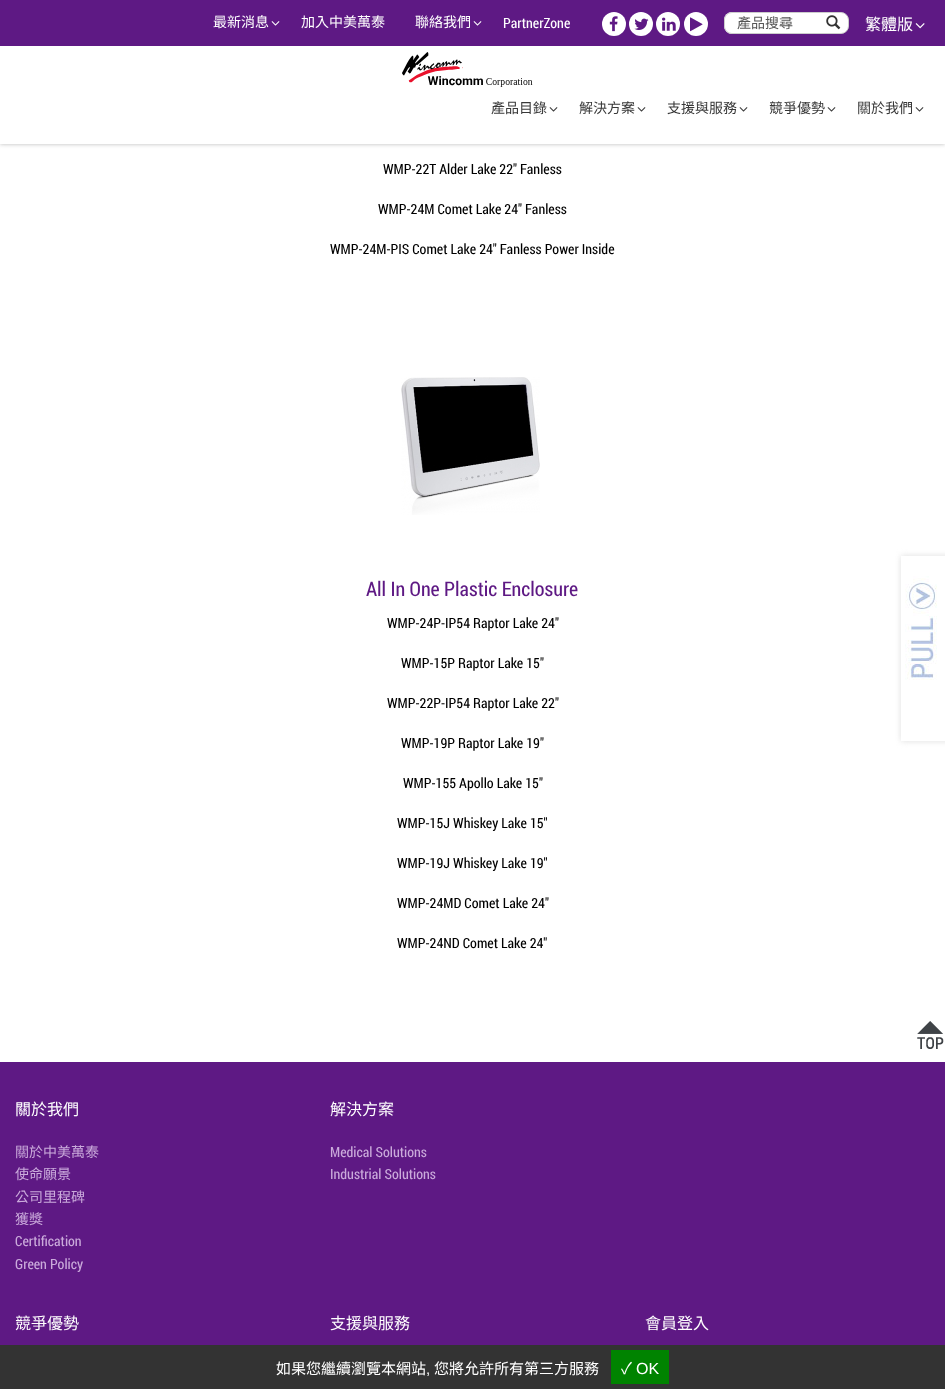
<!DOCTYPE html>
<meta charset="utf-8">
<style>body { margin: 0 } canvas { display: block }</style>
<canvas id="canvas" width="945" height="1389"></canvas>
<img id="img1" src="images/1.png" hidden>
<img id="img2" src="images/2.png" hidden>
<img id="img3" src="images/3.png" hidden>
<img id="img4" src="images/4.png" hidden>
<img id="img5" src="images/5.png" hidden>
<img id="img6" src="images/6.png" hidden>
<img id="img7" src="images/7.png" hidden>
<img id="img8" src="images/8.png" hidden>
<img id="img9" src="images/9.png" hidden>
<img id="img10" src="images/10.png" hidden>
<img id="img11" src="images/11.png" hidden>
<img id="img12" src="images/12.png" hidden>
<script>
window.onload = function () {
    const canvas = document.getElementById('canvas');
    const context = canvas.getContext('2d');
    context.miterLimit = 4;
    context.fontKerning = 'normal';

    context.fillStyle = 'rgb(255, 255, 255)';
    context.fillRect(0, 0, 945, 1389);
    context.fillStyle = 'rgb(184, 184, 184)';
    context.filter = 'blur(2px)';
    context.beginPath();
    context.rect(0, 0, 945, 144);
    context.fill();
    context.filter = 'none';
    context.fillStyle = 'rgb(255, 255, 255)';
    context.fillRect(0, 46, 945, 98);
    context.fillStyle = 'rgb(94, 25, 132)';
    context.fillRect(0, 0, 945, 46);
    context.drawImage(document.getElementById('img1'), 271, 21, 9, 5);
    context.drawImage(document.getElementById('img1'), 473, 21, 9, 5);
    context.fillStyle = 'rgb(255, 255, 255)';
    context.beginPath();
    context.arc(614, 24, 12, 0, 2 * Math.PI);
    context.fill();
    context.drawImage(document.getElementById('img2'), 609, 16, 9, 16);
    context.beginPath();
    context.arc(641, 24, 12, 0, 2 * Math.PI);
    context.fill();
    context.drawImage(document.getElementById('img3'), 634, 18, 15, 12);
    context.beginPath();
    context.arc(668, 24, 12, 0, 2 * Math.PI);
    context.fill();
    context.drawImage(document.getElementById('img4'), 662, 17, 14, 14);
    context.beginPath();
    context.arc(696, 24, 12, 0, 2 * Math.PI);
    context.fill();
    context.drawImage(document.getElementById('img5'), 690, 17, 13, 15);
    context.beginPath();
    context.roundRect(823.5, 12.5, 25, 21, [0, 7.5, 7.5, 0]);
    context.fill();
    context.strokeStyle = 'rgb(204, 204, 204)';
    context.stroke();
    context.beginPath();
    context.roundRect(724, 12, 100, 22, [8, 0, 0, 8]);
    context.fill();
    context.fillStyle = 'rgb(204, 204, 204)';
    context.beginPath();
    context.moveTo(732, 12);
    context.lineTo(824, 12);
    context.lineTo(824, 34);
    context.lineTo(732, 34);
    context.bezierCurveTo(728, 34, 724, 30, 724, 26);
    context.lineTo(724, 20);
    context.bezierCurveTo(724, 16, 728, 12, 732, 12);
    context.closePath();
    context.moveTo(732, 13);
    context.lineTo(824, 13);
    context.lineTo(824, 33);
    context.lineTo(732, 33);
    context.bezierCurveTo(728, 33, 725, 30, 725, 26);
    context.lineTo(725, 20);
    context.bezierCurveTo(725, 16, 728, 13, 732, 13);
    context.closePath();
    context.fill('evenodd');
    context.drawImage(document.getElementById('img6'), 826, 15, 15, 15);
    context.drawImage(document.getElementById('img7'), 915, 23, 10, 6);
    context.drawImage(document.getElementById('img8'), 402, 52, 131, 35);
    context.drawImage(document.getElementById('img9'), 549, 107, 9, 5);
    context.drawImage(document.getElementById('img9'), 637, 107, 9, 5);
    context.drawImage(document.getElementById('img9'), 739, 107, 9, 5);
    context.drawImage(document.getElementById('img9'), 827, 107, 9, 5);
    context.drawImage(document.getElementById('img9'), 915, 107, 9, 5);
    context.drawImage(document.getElementById('img10'), 401, 377, 139, 138);
    context.drawImage(document.getElementById('img11'), 917, 1021, 27, 28);
    context.fillStyle = 'rgb(94, 25, 132)';
    context.fillRect(0, 1062, 945, 283);
    context.save();
    context.beginPath();
    context.moveTo(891, 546);
    context.lineTo(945, 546);
    context.lineTo(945, 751);
    context.lineTo(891, 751);
    context.closePath();
    context.moveTo(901, 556);
    context.lineTo(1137, 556);
    context.lineTo(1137, 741);
    context.lineTo(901, 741);
    context.closePath();
    context.clip('evenodd');
    context.fillStyle = 'rgb(222, 222, 222)';
    context.filter = 'blur(3px)';
    context.beginPath();
    context.rect(901, 556, 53, 185);
    context.fill();
    context.filter = 'none';
    context.restore();
    context.drawImage(document.getElementById('img12'), 905, 576, 32, 104);
    context.fillStyle = 'rgb(51, 51, 51)';
    context.fillRect(0, 1345, 945, 44);
    context.fillStyle = 'rgb(0, 131, 0)';
    context.fillRect(611, 1350, 58, 34);
    context.font = '14px Noto Sans CJK TC';
    context.fillStyle = 'rgb(255, 255, 255)';
    context.fillText('最新消息', 213, 27);
    context.fillText('加入中美萬泰', 301, 27);
    context.fillText('聯絡我們', 415, 27);
    context.font = '14px Roboto Condensed';
    context.fillText('PartnerZone', 503, 28);
    context.font = '14px Noto Sans CJK TC';
    context.fillStyle = 'rgb(85, 85, 85)';
    context.fillText('產品搜尋', 737, 28);
    context.font = '16px Noto Sans CJK TC';
    context.fillStyle = 'rgb(255, 255, 255)';
    context.fillText('繁體版', 865, 30);
    context.font = '14px Noto Sans CJK TC';
    context.fillStyle = 'rgb(56, 56, 56)';
    context.fillText('產品目錄', 491, 113);
    context.fillText('解決方案', 579, 113);
    context.fillText('支援與服務', 667, 113);
    context.fillText('競爭優勢', 769, 113);
    context.fillText('關於我們', 857, 113);
    context.font = '14px Roboto Condensed';
    context.fillStyle = 'rgb(0, 0, 0)';
    context.fillText('WMP-22T Alder Lake 22" Fanless', 383, 174);
    context.fillText('WMP-24M Comet Lake 24" Fanless', 378, 214);
    context.fillText('WMP-24M-PIS Comet Lake 24" Fanless Power Inside', 330, 254);
    context.font = '20px Roboto Condensed';
    context.fillStyle = 'rgb(94, 25, 132)';
    context.fillText('All In One Plastic Enclosure', 366, 596);
    context.font = '14px Roboto Condensed';
    context.fillStyle = 'rgb(0, 0, 0)';
    context.fillText('WMP-24P-IP54 Raptor Lake 24"', 387, 628);
    context.fillText('WMP-15P Raptor Lake 15"', 401, 668);
    context.fillText('WMP-22P-IP54 Raptor Lake 22"', 387, 708);
    context.fillText('WMP-19P Raptor Lake 19"', 401, 748);
    context.fillText('WMP-155 Apollo Lake 15"', 403, 788);
    context.fillText('WMP-15J Whiskey Lake 15"', 397, 828);
    context.fillText('WMP-19J Whiskey Lake 19"', 397, 868);
    context.fillText('WMP-24MD Comet Lake 24"', 397, 908);
    context.fillText('WMP-24ND Comet Lake 24"', 397, 948);
    context.font = '16px Noto Sans CJK TC';
    context.fillStyle = 'rgb(255, 255, 255)';
    context.fillText('關於我們', 15, 1115);
    context.font = '14px Noto Sans CJK TC';
    context.fillStyle = 'rgb(202, 170, 219)';
    context.fillText('關於中美萬泰', 15, 1157);
    context.fillText('使命願景', 15, 1179);
    context.fillText('公司里程碑', 15, 1202);
    context.fillText('獲獎', 15, 1224);
    context.font = '14px Roboto Condensed';
    context.fillText('Certification', 15, 1246);
    context.fillText('Green Policy', 15, 1269);
    context.font = '16px Noto Sans CJK TC';
    context.fillStyle = 'rgb(255, 255, 255)';
    context.fillText('解決方案', 330, 1115);
    context.font = '14px Roboto Condensed';
    context.fillStyle = 'rgb(202, 170, 219)';
    context.fillText('Medical Solutions', 330, 1157);
    context.fillText('Industrial Solutions', 330, 1179);
    context.font = '16px Noto Sans CJK TC';
    context.fillStyle = 'rgb(255, 255, 255)';
    context.fillText('競爭優勢', 15, 1329);
    context.fillText('支援與服務', 330, 1329);
    context.fillText('會員登入', 645, 1329);
    context.font = '15px Noto Sans CJK TC';
    context.fillText('如果您繼續瀏覽本網站', 276, 1374);
    context.font = '15px Liberation Sans';
    context.fillText(',', 426, 1374);
    context.font = '15px Noto Sans CJK TC';
    context.fillText('您將允許所有第三方服務', 434, 1374);
    context.font = '16px Noto Sans CJK TC';
    context.fillText('✓', 621, 1374);
    context.font = '16px Liberation Sans';
    context.fillText('OK', 636, 1374);
};
</script>
